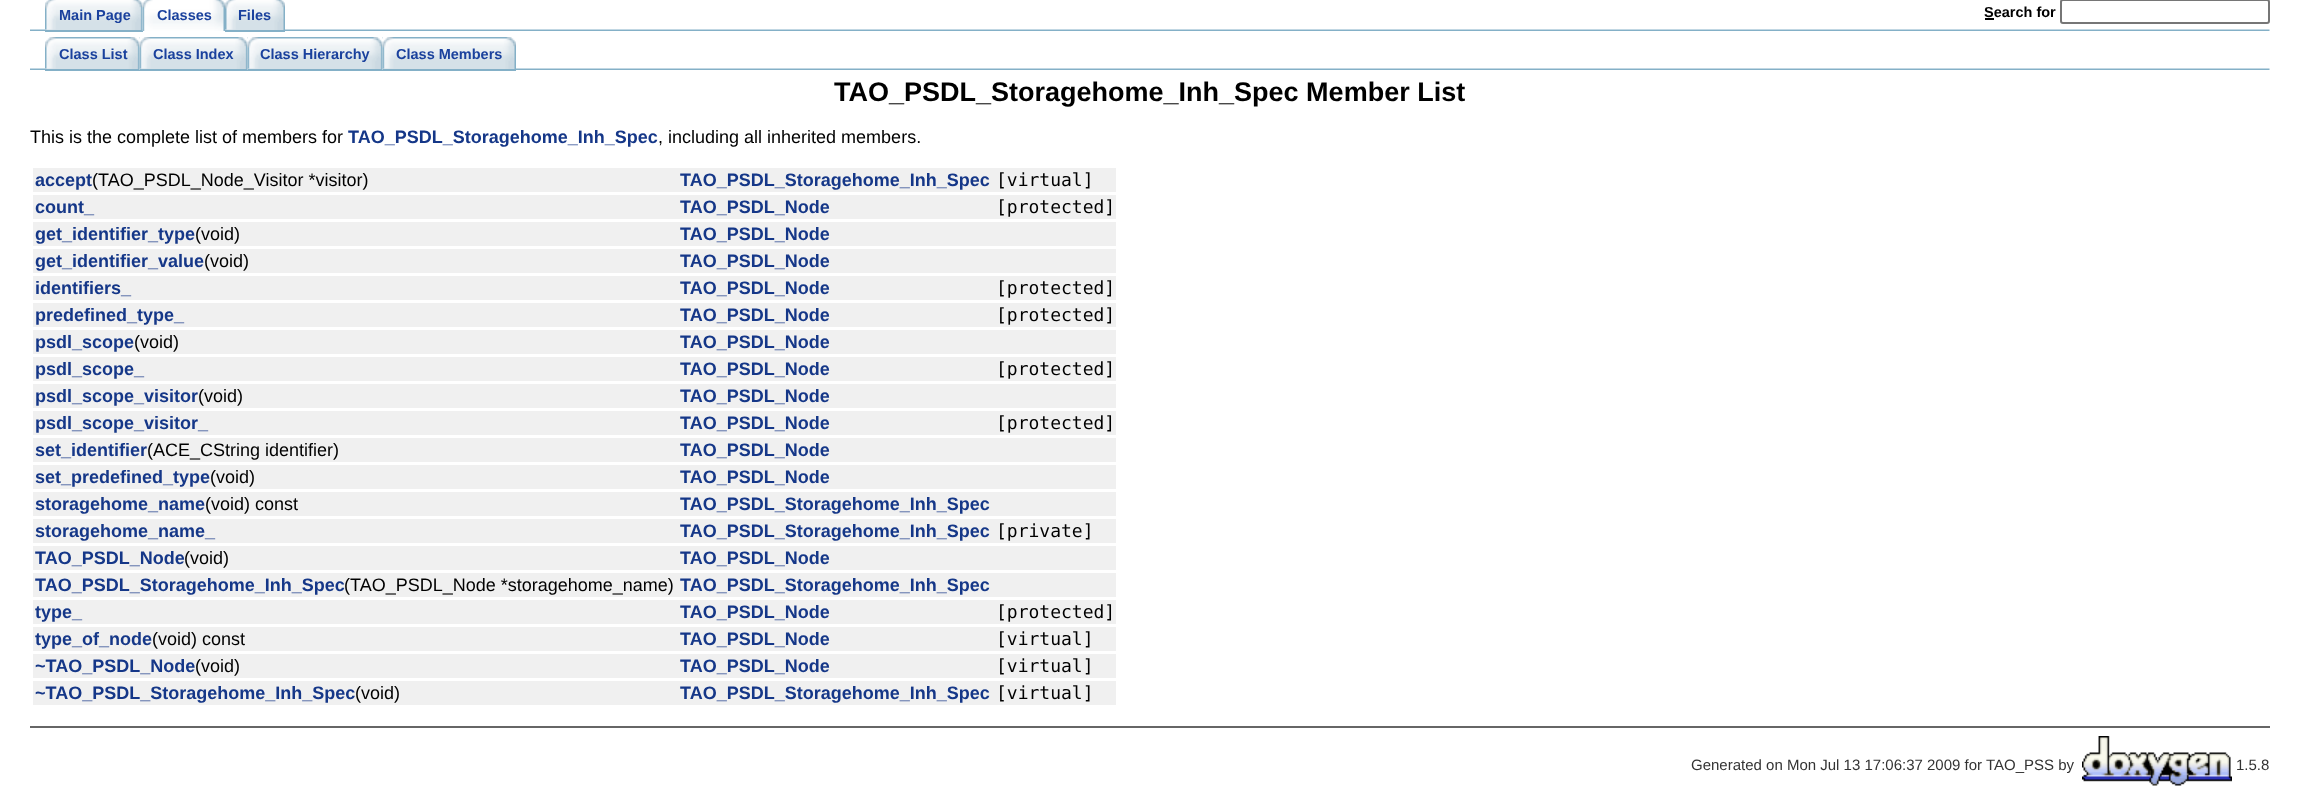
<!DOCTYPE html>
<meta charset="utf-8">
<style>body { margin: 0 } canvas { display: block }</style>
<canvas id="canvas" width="2299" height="811"></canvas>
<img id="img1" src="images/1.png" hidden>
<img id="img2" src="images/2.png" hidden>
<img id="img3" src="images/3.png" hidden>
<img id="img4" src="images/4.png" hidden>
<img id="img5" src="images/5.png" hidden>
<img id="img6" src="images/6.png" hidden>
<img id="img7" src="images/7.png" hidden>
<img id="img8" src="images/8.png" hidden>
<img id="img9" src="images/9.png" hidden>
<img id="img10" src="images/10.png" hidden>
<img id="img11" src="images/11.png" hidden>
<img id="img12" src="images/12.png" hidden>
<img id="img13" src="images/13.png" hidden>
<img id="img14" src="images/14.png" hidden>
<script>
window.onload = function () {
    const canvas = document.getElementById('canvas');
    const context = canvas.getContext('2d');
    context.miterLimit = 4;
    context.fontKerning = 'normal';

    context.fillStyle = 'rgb(255, 255, 255)';
    context.fillRect(0, 0, 2299, 811);
    context.drawImage(document.getElementById('img1'), 30, 29, 2240, 2);
    context.drawImage(document.getElementById('img2'), 45, 0, 98, 30);
    context.fillStyle = 'rgb(132, 176, 199)';
    context.fillRect(45, 31, 98, 1);
    context.drawImage(document.getElementById('img3'), 45, 0, 11, 30);
    context.drawImage(document.getElementById('img4'), 142, 0, 83, 31);
    context.drawImage(document.getElementById('img5'), 142, 0, 11, 31);
    context.drawImage(document.getElementById('img6'), 225, 0, 60, 30);
    context.fillRect(225, 31, 60, 1);
    context.drawImage(document.getElementById('img3'), 225, 0, 11, 30);
    context.fillStyle = 'rgb(0, 0, 0)';
    context.fillRect(1985, 18, 9, 2);
    context.beginPath();
    context.roundRect(2061, 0, 208, 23, 2);
    context.strokeStyle = 'rgb(118, 118, 118)';
    context.lineWidth = 2;
    context.stroke();
    context.drawImage(document.getElementById('img1'), 30, 68, 2240, 2);
    context.drawImage(document.getElementById('img7'), 45, 37, 95, 32);
    context.fillStyle = 'rgb(132, 176, 199)';
    context.fillRect(45, 70, 95, 1);
    context.drawImage(document.getElementById('img8'), 45, 37, 11, 32);
    context.drawImage(document.getElementById('img9'), 139, 37, 109, 33);
    context.fillRect(140, 69, 108, 2);
    context.drawImage(document.getElementById('img10'), 139, 37, 12, 32);
    context.drawImage(document.getElementById('img11'), 247, 37, 136, 33);
    context.fillRect(248, 69, 135, 2);
    context.drawImage(document.getElementById('img10'), 247, 37, 12, 32);
    context.drawImage(document.getElementById('img12'), 382, 37, 134, 33);
    context.fillRect(383, 69, 133, 2);
    context.drawImage(document.getElementById('img13'), 382, 37, 12, 32);
    context.fillStyle = 'rgb(240, 240, 240)';
    context.fillRect(33, 168, 1083, 24);
    context.fillRect(33, 195, 1083, 24);
    context.fillRect(33, 222, 1083, 24);
    context.fillRect(33, 249, 1083, 24);
    context.fillRect(33, 276, 1083, 24);
    context.fillRect(33, 303, 1083, 24);
    context.fillRect(33, 330, 1083, 24);
    context.fillRect(33, 357, 1083, 24);
    context.fillRect(33, 384, 1083, 24);
    context.fillRect(33, 411, 1083, 24);
    context.fillRect(33, 438, 1083, 24);
    context.fillRect(33, 465, 1083, 24);
    context.fillRect(33, 492, 1083, 24);
    context.fillRect(33, 519, 1083, 24);
    context.fillRect(33, 546, 1083, 24);
    context.fillRect(33, 573, 1083, 24);
    context.fillRect(33, 600, 1083, 24);
    context.fillRect(33, 627, 1083, 24);
    context.fillRect(33, 654, 1083, 24);
    context.fillRect(33, 681, 1083, 24);
    context.fillStyle = 'rgb(102, 102, 102)';
    context.fillRect(30, 726, 2240, 2);
    context.drawImage(document.getElementById('img14'), 2082, 736, 150, 50);
    context.font = 'bold 14.5px Liberation Sans';
    context.fillStyle = 'rgb(26, 65, 157)';
    context.fillText('Main Page', 59, 20);
    context.fillText('Classes', 157, 20);
    context.fillText('Files', 238, 20);
    context.fillStyle = 'rgb(0, 0, 0)';
    context.fillText('Search for', 1984, 17);
    context.fillStyle = 'rgb(26, 65, 157)';
    context.fillText('Class List', 59, 59);
    context.fillText('Class Index', 153, 59);
    context.fillText('Class Hierarchy', 260, 59);
    context.fillText('Class Members', 396, 59);
    context.font = 'bold 27px Liberation Sans';
    context.fillStyle = 'rgb(0, 0, 0)';
    context.fillText('TAO_PSDL_Storagehome_Inh_Spec Member List', 834, 101);
    context.font = '18px Liberation Sans';
    context.fillText('This is the complete list of members for', 30, 143);
    context.font = 'bold 18px Liberation Sans';
    context.fillStyle = 'rgb(21, 55, 136)';
    context.fillText('TAO_PSDL_Storagehome_Inh_Spec', 348, 143);
    context.font = '18px Liberation Sans';
    context.fillStyle = 'rgb(0, 0, 0)';
    context.fillText(', including all inherited members.', 658, 143);
    context.font = 'bold 18px Liberation Sans';
    context.fillStyle = 'rgb(21, 55, 136)';
    context.fillText('accept', 35, 186);
    context.font = '18px Liberation Sans';
    context.fillStyle = 'rgb(0, 0, 0)';
    context.fillText('(TAO_PSDL_Node_Visitor *visitor)', 92, 186);
    context.font = 'bold 18px Liberation Sans';
    context.fillStyle = 'rgb(21, 55, 136)';
    context.fillText('TAO_PSDL_Storagehome_Inh_Spec', 680, 186);
    context.font = '18px DejaVu Sans Mono';
    context.fillStyle = 'rgb(0, 0, 0)';
    context.fillText('[virtual]', 996, 186);
    context.font = 'bold 18px Liberation Sans';
    context.fillStyle = 'rgb(21, 55, 136)';
    context.fillText('count_', 35, 213);
    context.fillText('TAO_PSDL_Node', 680, 213);
    context.font = '18px DejaVu Sans Mono';
    context.fillStyle = 'rgb(0, 0, 0)';
    context.fillText('[protected]', 996, 213);
    context.font = 'bold 18px Liberation Sans';
    context.fillStyle = 'rgb(21, 55, 136)';
    context.fillText('get_identifier_type', 35, 240);
    context.font = '18px Liberation Sans';
    context.fillStyle = 'rgb(0, 0, 0)';
    context.fillText('(void)', 195, 240);
    context.font = 'bold 18px Liberation Sans';
    context.fillStyle = 'rgb(21, 55, 136)';
    context.fillText('TAO_PSDL_Node', 680, 240);
    context.fillText('get_identifier_value', 35, 267);
    context.font = '18px Liberation Sans';
    context.fillStyle = 'rgb(0, 0, 0)';
    context.fillText('(void)', 204, 267);
    context.font = 'bold 18px Liberation Sans';
    context.fillStyle = 'rgb(21, 55, 136)';
    context.fillText('TAO_PSDL_Node', 680, 267);
    context.fillText('identifiers_', 35, 294);
    context.fillText('TAO_PSDL_Node', 680, 294);
    context.font = '18px DejaVu Sans Mono';
    context.fillStyle = 'rgb(0, 0, 0)';
    context.fillText('[protected]', 996, 294);
    context.font = 'bold 18px Liberation Sans';
    context.fillStyle = 'rgb(21, 55, 136)';
    context.fillText('predefined_type_', 35, 321);
    context.fillText('TAO_PSDL_Node', 680, 321);
    context.font = '18px DejaVu Sans Mono';
    context.fillStyle = 'rgb(0, 0, 0)';
    context.fillText('[protected]', 996, 321);
    context.font = 'bold 18px Liberation Sans';
    context.fillStyle = 'rgb(21, 55, 136)';
    context.fillText('psdl_scope', 35, 348);
    context.font = '18px Liberation Sans';
    context.fillStyle = 'rgb(0, 0, 0)';
    context.fillText('(void)', 134, 348);
    context.font = 'bold 18px Liberation Sans';
    context.fillStyle = 'rgb(21, 55, 136)';
    context.fillText('TAO_PSDL_Node', 680, 348);
    context.fillText('psdl_scope_', 35, 375);
    context.fillText('TAO_PSDL_Node', 680, 375);
    context.font = '18px DejaVu Sans Mono';
    context.fillStyle = 'rgb(0, 0, 0)';
    context.fillText('[protected]', 996, 375);
    context.font = 'bold 18px Liberation Sans';
    context.fillStyle = 'rgb(21, 55, 136)';
    context.fillText('psdl_scope_visitor', 35, 402);
    context.font = '18px Liberation Sans';
    context.fillStyle = 'rgb(0, 0, 0)';
    context.fillText('(void)', 198, 402);
    context.font = 'bold 18px Liberation Sans';
    context.fillStyle = 'rgb(21, 55, 136)';
    context.fillText('TAO_PSDL_Node', 680, 402);
    context.fillText('psdl_scope_visitor_', 35, 429);
    context.fillText('TAO_PSDL_Node', 680, 429);
    context.font = '18px DejaVu Sans Mono';
    context.fillStyle = 'rgb(0, 0, 0)';
    context.fillText('[protected]', 996, 429);
    context.font = 'bold 18px Liberation Sans';
    context.fillStyle = 'rgb(21, 55, 136)';
    context.fillText('set_identifier', 35, 456);
    context.font = '18px Liberation Sans';
    context.fillStyle = 'rgb(0, 0, 0)';
    context.fillText('(ACE_CString identifier)', 147, 456);
    context.font = 'bold 18px Liberation Sans';
    context.fillStyle = 'rgb(21, 55, 136)';
    context.fillText('TAO_PSDL_Node', 680, 456);
    context.fillText('set_predefined_type', 35, 483);
    context.font = '18px Liberation Sans';
    context.fillStyle = 'rgb(0, 0, 0)';
    context.fillText('(void)', 210, 483);
    context.font = 'bold 18px Liberation Sans';
    context.fillStyle = 'rgb(21, 55, 136)';
    context.fillText('TAO_PSDL_Node', 680, 483);
    context.fillText('storagehome_name', 35, 510);
    context.font = '18px Liberation Sans';
    context.fillStyle = 'rgb(0, 0, 0)';
    context.fillText('(void) const', 205, 510);
    context.font = 'bold 18px Liberation Sans';
    context.fillStyle = 'rgb(21, 55, 136)';
    context.fillText('TAO_PSDL_Storagehome_Inh_Spec', 680, 510);
    context.fillText('storagehome_name_', 35, 537);
    context.fillText('TAO_PSDL_Storagehome_Inh_Spec', 680, 537);
    context.font = '18px DejaVu Sans Mono';
    context.fillStyle = 'rgb(0, 0, 0)';
    context.fillText('[private]', 996, 537);
    context.font = 'bold 18px Liberation Sans';
    context.fillStyle = 'rgb(21, 55, 136)';
    context.fillText('TAO_PSDL_Node', 35, 564);
    context.font = '18px Liberation Sans';
    context.fillStyle = 'rgb(0, 0, 0)';
    context.fillText('(void)', 184, 564);
    context.font = 'bold 18px Liberation Sans';
    context.fillStyle = 'rgb(21, 55, 136)';
    context.fillText('TAO_PSDL_Node', 680, 564);
    context.fillText('TAO_PSDL_Storagehome_Inh_Spec', 35, 591);
    context.font = '18px Liberation Sans';
    context.fillStyle = 'rgb(0, 0, 0)';
    context.fillText('(TAO_PSDL_Node *storagehome_name)', 344, 591);
    context.font = 'bold 18px Liberation Sans';
    context.fillStyle = 'rgb(21, 55, 136)';
    context.fillText('TAO_PSDL_Storagehome_Inh_Spec', 680, 591);
    context.fillText('type_', 35, 618);
    context.fillText('TAO_PSDL_Node', 680, 618);
    context.font = '18px DejaVu Sans Mono';
    context.fillStyle = 'rgb(0, 0, 0)';
    context.fillText('[protected]', 996, 618);
    context.font = 'bold 18px Liberation Sans';
    context.fillStyle = 'rgb(21, 55, 136)';
    context.fillText('type_of_node', 35, 645);
    context.font = '18px Liberation Sans';
    context.fillStyle = 'rgb(0, 0, 0)';
    context.fillText('(void) const', 152, 645);
    context.font = 'bold 18px Liberation Sans';
    context.fillStyle = 'rgb(21, 55, 136)';
    context.fillText('TAO_PSDL_Node', 680, 645);
    context.font = '18px DejaVu Sans Mono';
    context.fillStyle = 'rgb(0, 0, 0)';
    context.fillText('[virtual]', 996, 645);
    context.font = 'bold 18px Liberation Sans';
    context.fillStyle = 'rgb(21, 55, 136)';
    context.fillText('~TAO_PSDL_Node', 35, 672);
    context.font = '18px Liberation Sans';
    context.fillStyle = 'rgb(0, 0, 0)';
    context.fillText('(void)', 195, 672);
    context.font = 'bold 18px Liberation Sans';
    context.fillStyle = 'rgb(21, 55, 136)';
    context.fillText('TAO_PSDL_Node', 680, 672);
    context.font = '18px DejaVu Sans Mono';
    context.fillStyle = 'rgb(0, 0, 0)';
    context.fillText('[virtual]', 996, 672);
    context.font = 'bold 18px Liberation Sans';
    context.fillStyle = 'rgb(21, 55, 136)';
    context.fillText('~TAO_PSDL_Storagehome_Inh_Spec', 35, 699);
    context.font = '18px Liberation Sans';
    context.fillStyle = 'rgb(0, 0, 0)';
    context.fillText('(void)', 355, 699);
    context.font = 'bold 18px Liberation Sans';
    context.fillStyle = 'rgb(21, 55, 136)';
    context.fillText('TAO_PSDL_Storagehome_Inh_Spec', 680, 699);
    context.font = '18px DejaVu Sans Mono';
    context.fillStyle = 'rgb(0, 0, 0)';
    context.fillText('[virtual]', 996, 699);
    context.font = '15px Liberation Sans';
    context.fillStyle = 'rgb(51, 51, 51)';
    context.fillText('Generated on Mon Jul 13 17:06:37 2009 for TAO_PSS by', 1691, 770);
    context.fillText('1.5.8', 2236, 770);
};
</script>
